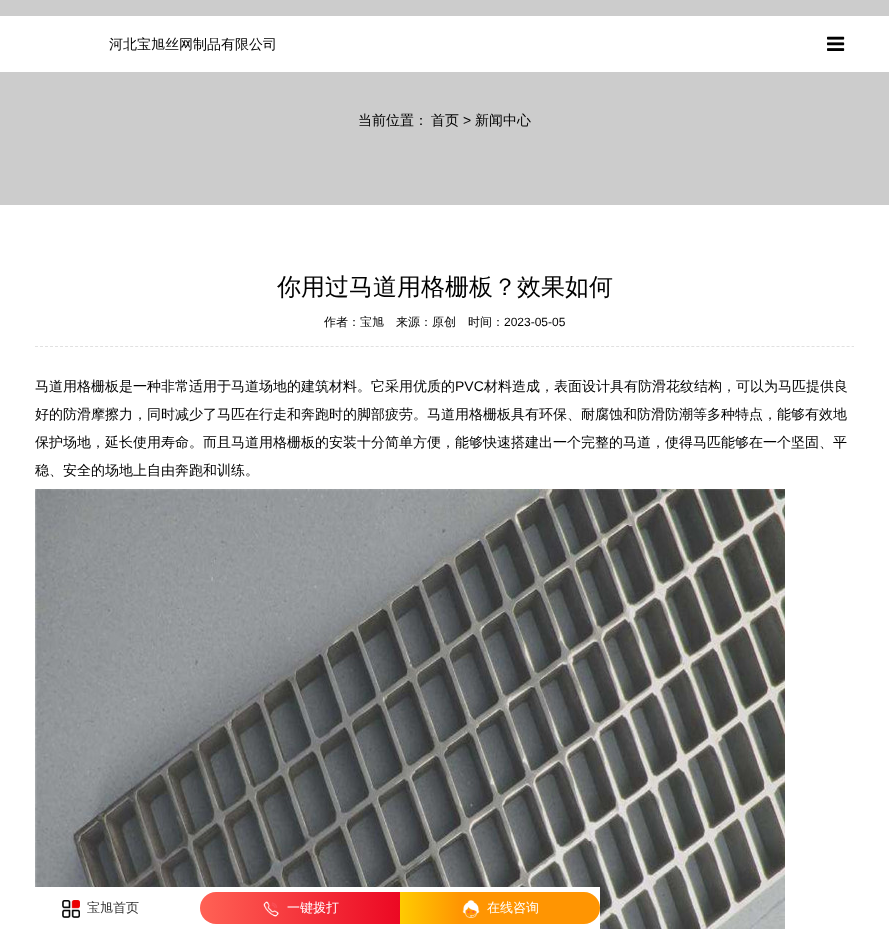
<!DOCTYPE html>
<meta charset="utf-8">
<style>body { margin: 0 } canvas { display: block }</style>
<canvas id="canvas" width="889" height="929"></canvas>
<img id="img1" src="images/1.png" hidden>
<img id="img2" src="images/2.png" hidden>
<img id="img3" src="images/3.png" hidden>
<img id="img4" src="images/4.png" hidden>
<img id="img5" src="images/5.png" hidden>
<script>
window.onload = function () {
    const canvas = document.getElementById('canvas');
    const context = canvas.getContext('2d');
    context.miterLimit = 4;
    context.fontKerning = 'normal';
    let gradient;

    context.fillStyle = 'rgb(204, 204, 204)';
    context.fillRect(0, 0, 889, 929);
    context.fillStyle = 'rgb(255, 255, 255)';
    context.fillRect(0, 16, 889, 56);
    context.drawImage(document.getElementById('img1'), 827, 36, 18, 15);
    context.fillRect(0, 205, 889, 724);
    context.beginPath();
    context.moveTo(35, 346.5);
    context.lineTo(854, 346.5);
    context.strokeStyle = 'rgb(225, 225, 225)';
    context.setLineDash([3, 2.01]);
    context.stroke();
    context.drawImage(document.getElementById('img2'), 35, 489, 750, 440);
    context.fillRect(35, 887, 565, 42);
    context.drawImage(document.getElementById('img3'), 62, 900, 18, 18);
    gradient = context.createLinearGradient(200, 908, 400, 908);
    gradient.addColorStop(0, 'rgb(255, 98, 85)');
    gradient.addColorStop(1, 'rgb(236, 8, 35)');
    context.fillStyle = gradient;
    context.beginPath();
    context.roundRect(200, 892, 200, 32, [16, 0, 0, 16]);
    context.fill();
    context.drawImage(document.getElementById('img4'), 263, 901, 16, 16);
    gradient = context.createLinearGradient(400, 908, 600, 908);
    gradient.addColorStop(0, 'rgb(255, 203, 1)');
    gradient.addColorStop(0.3, 'rgb(255, 149, 2)');
    gradient.addColorStop(1, 'rgb(255, 149, 2)');
    context.fillStyle = gradient;
    context.beginPath();
    context.roundRect(400, 892, 200, 32, [0, 16, 16, 0]);
    context.fill();
    context.drawImage(document.getElementById('img5'), 462, 900, 18, 18);
    context.font = '500 14px WenQuanYi Zen Hei';
    context.fillStyle = 'rgb(0, 0, 0)';
    context.fillText('河北宝旭丝网制品有限公司', 109, 49);
    context.fillText('当前位置：', 358, 125);
    context.fillText('首页', 431, 125);
    context.font = '14px Liberation Sans';
    context.fillText('>', 463, 125);
    context.font = '500 14px WenQuanYi Zen Hei';
    context.fillText('新闻中心', 475, 125);
    context.font = '500 24px WenQuanYi Zen Hei';
    context.fillText('你用过马道用格栅板？效果如何', 277, 295);
    context.font = '500 12px WenQuanYi Zen Hei';
    context.fillText('作者：宝旭　来源：原创　时间：', 324, 326);
    context.font = '12px Liberation Sans';
    context.fillText('2023-05-05', 504, 326);
    context.font = '500 14px WenQuanYi Zen Hei';
    context.fillText('马道用格栅板是一种非常适用于马道场地的建筑材料。它采用优质的', 35, 391);
    context.font = '14px Liberation Sans';
    context.fillText('PVC', 455, 391);
    context.font = '500 14px WenQuanYi Zen Hei';
    context.fillText('材料造成，表面设计具有防滑花纹结构，可以为马匹提供良', 484, 391);
    context.fillText('好的防滑摩擦力，同时减少了马匹在行走和奔跑时的脚部疲劳。马道用格栅板具有环保、耐腐蚀和防滑防潮等多种特点，能够有效地', 35, 419);
    context.fillText('保护场地，延长使用寿命。而且马道用格栅板的安装十分简单方便，能够快速搭建出一个完整的马道，使得马匹能够在一个坚固、平', 35, 447);
    context.fillText('稳、安全的场地上自由奔跑和训练。', 35, 475);
    context.font = '500 13px WenQuanYi Zen Hei';
    context.fillStyle = 'rgb(51, 51, 51)';
    context.fillText('宝旭首页', 87, 912);
    context.fillStyle = 'rgb(255, 255, 255)';
    context.fillText('一键拨打', 287, 912);
    context.fillText('在线咨询', 487, 912);
};
</script>
